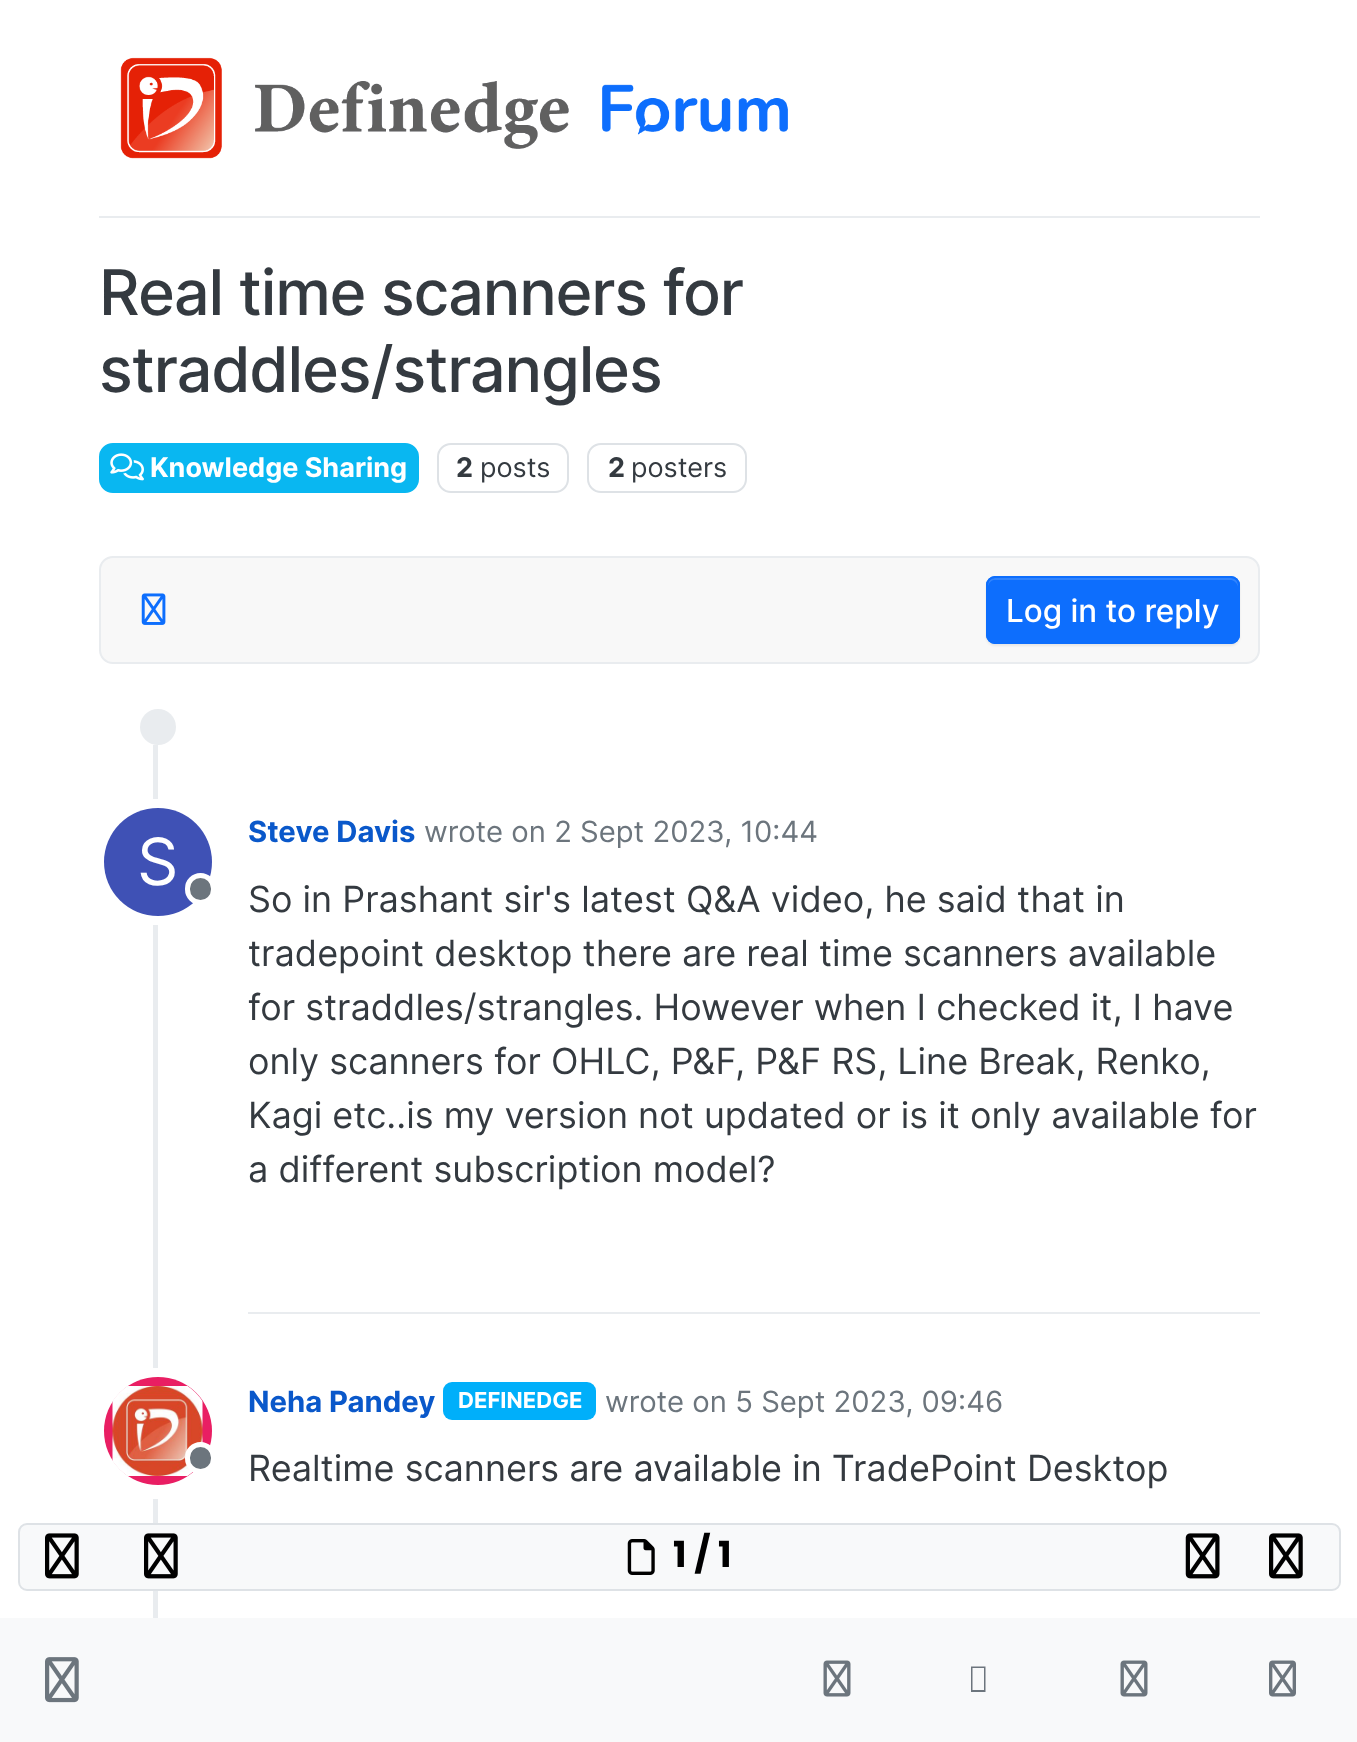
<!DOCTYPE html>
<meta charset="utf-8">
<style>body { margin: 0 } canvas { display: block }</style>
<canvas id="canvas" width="1357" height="1742"></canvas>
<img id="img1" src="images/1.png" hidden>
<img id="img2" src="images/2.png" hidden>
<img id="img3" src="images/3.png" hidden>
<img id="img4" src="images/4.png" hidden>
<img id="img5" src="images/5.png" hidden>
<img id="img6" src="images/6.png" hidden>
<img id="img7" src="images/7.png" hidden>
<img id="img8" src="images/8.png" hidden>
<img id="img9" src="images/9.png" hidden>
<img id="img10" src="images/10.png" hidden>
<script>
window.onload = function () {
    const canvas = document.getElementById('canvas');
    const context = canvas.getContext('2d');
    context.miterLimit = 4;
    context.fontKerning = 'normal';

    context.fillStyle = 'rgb(255, 255, 255)';
    context.fillRect(0, 0, 1357, 1742);
    context.fillStyle = 'rgb(233, 236, 239)';
    context.fillRect(99, 216, 1161, 2);
    context.drawImage(document.getElementById('img1'), 120, 57, 668, 102);
    context.fillStyle = 'rgb(9, 183, 241)';
    context.beginPath();
    context.roundRect(100, 444, 318, 48, 13);
    context.fill();
    context.strokeStyle = 'rgb(9, 183, 241)';
    context.lineWidth = 2;
    context.stroke();
    context.drawImage(document.getElementById('img2'), 110, 453, 34, 28);
    context.beginPath();
    context.roundRect(438, 444, 130, 48, 13);
    context.strokeStyle = 'rgb(222, 226, 230)';
    context.stroke();
    context.beginPath();
    context.roundRect(588, 444, 158, 48, 13);
    context.stroke();
    context.fillStyle = 'rgb(248, 248, 248)';
    context.beginPath();
    context.roundRect(100, 557, 1159, 106, 13);
    context.fill();
    context.strokeStyle = 'rgb(233, 236, 239)';
    context.stroke();
    context.drawImage(document.getElementById('img3'), 141, 593, 25, 32);
    context.fillStyle = 'rgba(0, 0, 0, 0.07)';
    context.filter = 'blur(1px)';
    context.beginPath();
    context.roundRect(986, 578, 254, 68, 9);
    context.fill();
    context.filter = 'none';
    context.fillStyle = 'rgb(13, 110, 253)';
    context.beginPath();
    context.roundRect(986, 576, 254, 68, 9);
    context.fill();
    context.fillStyle = 'rgb(49, 132, 253)';
    context.beginPath();
    context.moveTo(994, 580);
    context.lineTo(1231, 580);
    context.bezierCurveTo(1234, 580, 1238, 584, 1238, 587);
    context.lineTo(1238, 585);
    context.bezierCurveTo(1238, 581, 1235, 578, 1231, 578);
    context.lineTo(995, 578);
    context.bezierCurveTo(991, 578, 988, 581, 988, 585);
    context.lineTo(988, 587);
    context.bezierCurveTo(988, 584, 991, 580, 994, 580);
    context.closePath();
    context.fill();
    context.beginPath();
    context.roundRect(987, 577, 252, 66, 8);
    context.strokeStyle = 'rgb(13, 110, 253)';
    context.stroke();
    context.fillStyle = 'rgb(233, 236, 239)';
    context.fillRect(153, 745, 5, 873);
    context.beginPath();
    context.arc(158, 727, 18, 0, 2 * Math.PI);
    context.fill();
    context.fillStyle = 'rgb(255, 255, 255)';
    context.fillRect(153, 799, 5, 126);
    context.fillStyle = 'rgb(63, 81, 181)';
    context.beginPath();
    context.arc(158, 862, 54, 0, 2 * Math.PI);
    context.fill();
    context.fillStyle = 'rgb(108, 117, 125)';
    context.beginPath();
    context.roundRect(187.5, 875.5, 26, 27, 13);
    context.fill();
    context.strokeStyle = 'rgb(255, 255, 255)';
    context.lineWidth = 5;
    context.stroke();
    context.fillStyle = 'rgb(233, 236, 239)';
    context.fillRect(248, 1312, 1012, 2);
    context.fillStyle = 'rgb(255, 255, 255)';
    context.fillRect(153, 1368, 5, 131);
    context.fillStyle = 'rgb(233, 30, 99)';
    context.beginPath();
    context.arc(158, 1431, 54, 0, 2 * Math.PI);
    context.fill();
    context.drawImage(document.getElementById('img4'), 112, 1386, 91, 90);
    context.fillStyle = 'rgb(108, 117, 125)';
    context.beginPath();
    context.roundRect(187.5, 1444.5, 26, 27, 13);
    context.fill();
    context.stroke();
    context.fillStyle = 'rgb(0, 175, 250)';
    context.beginPath();
    context.roundRect(443, 1382, 153, 38, 9);
    context.fill();
    context.fillStyle = 'rgb(248, 249, 250)';
    context.beginPath();
    context.roundRect(19, 1524, 1321, 66, 8);
    context.fill();
    context.strokeStyle = 'rgb(222, 226, 230)';
    context.lineWidth = 2;
    context.stroke();
    context.drawImage(document.getElementById('img5'), 45, 1533, 34, 46);
    context.drawImage(document.getElementById('img5'), 144, 1533, 34, 46);
    context.drawImage(document.getElementById('img6'), 627, 1539, 28, 36);
    context.drawImage(document.getElementById('img7'), 1185, 1533, 35, 46);
    context.drawImage(document.getElementById('img5'), 1269, 1533, 34, 46);
    context.fillRect(0, 1618, 1357, 124);
    context.drawImage(document.getElementById('img8'), 45, 1657, 34, 46);
    context.drawImage(document.getElementById('img9'), 823, 1660, 28, 37);
    context.fillStyle = 'rgb(108, 117, 125)';
    context.beginPath();
    context.moveTo(971, 1692);
    context.lineTo(971, 1666.5);
    context.lineTo(985.5, 1666.5);
    context.lineTo(985.5, 1692);
    context.closePath();
    context.moveTo(972.5, 1690);
    context.lineTo(984, 1690);
    context.lineTo(984, 1668);
    context.lineTo(972.5, 1668);
    context.closePath();
    context.fill();
    context.drawImage(document.getElementById('img9'), 1120, 1660, 28, 37);
    context.drawImage(document.getElementById('img10'), 1269, 1660, 27, 37);
    context.letterSpacing = '-1.2px';
    context.font = '500 63px Inter';
    context.fillStyle = 'rgb(52, 58, 64)';
    context.fillText('Real time scanners for', 99, 315);
    context.fillText('straddles/strangles', 99, 392);
    context.letterSpacing = '0px';
    context.font = 'bold 27px Inter';
    context.fillStyle = 'rgb(255, 255, 255)';
    context.fillText('Knowledge Sharing', 150, 477);
    context.fillStyle = 'rgb(52, 58, 64)';
    context.fillText('2', 456, 477);
    context.font = '27px Inter';
    context.fillText('posts', 480, 477);
    context.font = 'bold 27px Inter';
    context.fillText('2', 608, 477);
    context.font = '27px Inter';
    context.fillText('posters', 631, 477);
    context.font = '500 31.5px Inter';
    context.fillStyle = 'rgb(255, 255, 255)';
    context.fillText('Log in to reply', 1006, 622);
    context.font = '65px Inter';
    context.fillText('S', 137, 885);
    context.font = 'bold 29.25px Inter';
    context.fillStyle = 'rgb(10, 88, 202)';
    context.fillText('Steve Davis', 248, 842);
    context.font = '29.25px Inter';
    context.fillStyle = 'rgb(108, 117, 125)';
    context.fillText('wrote on 2 Sept 2023, 10:44', 424, 842);
    context.font = '36px Inter';
    context.fillStyle = 'rgb(52, 58, 64)';
    context.fillText('So in Prashant sir\'s latest Q&A video, he said that in', 248, 912);
    context.fillText('tradepoint desktop there are real time scanners available', 248, 966);
    context.fillText('for straddles/strangles. However when I checked it, I have', 248, 1020);
    context.fillText('only scanners for OHLC, P&F, P&F RS, Line Break, Renko,', 248, 1074);
    context.fillText('Kagi etc..is my version not updated or is it only available for', 248, 1128);
    context.fillText('a different subscription model?', 248, 1182);
    context.font = 'bold 29.25px Inter';
    context.fillStyle = 'rgb(10, 88, 202)';
    context.fillText('Neha Pandey', 248, 1412);
    context.font = 'bold 22px Inter';
    context.fillStyle = 'rgb(255, 255, 255)';
    context.fillText('DEFINEDGE', 458, 1408);
    context.font = '29.25px Inter';
    context.fillStyle = 'rgb(108, 117, 125)';
    context.fillText('wrote on 5 Sept 2023, 09:46', 605, 1412);
    context.font = '36px Inter';
    context.fillStyle = 'rgb(52, 58, 64)';
    context.fillText('Realtime scanners are available in TradePoint Desktop', 248, 1481);
    context.font = 'bold 36px Poppins';
    context.fillStyle = 'rgb(0, 0, 0)';
    context.fillText('1 / 1', 673, 1567);
};
</script>
